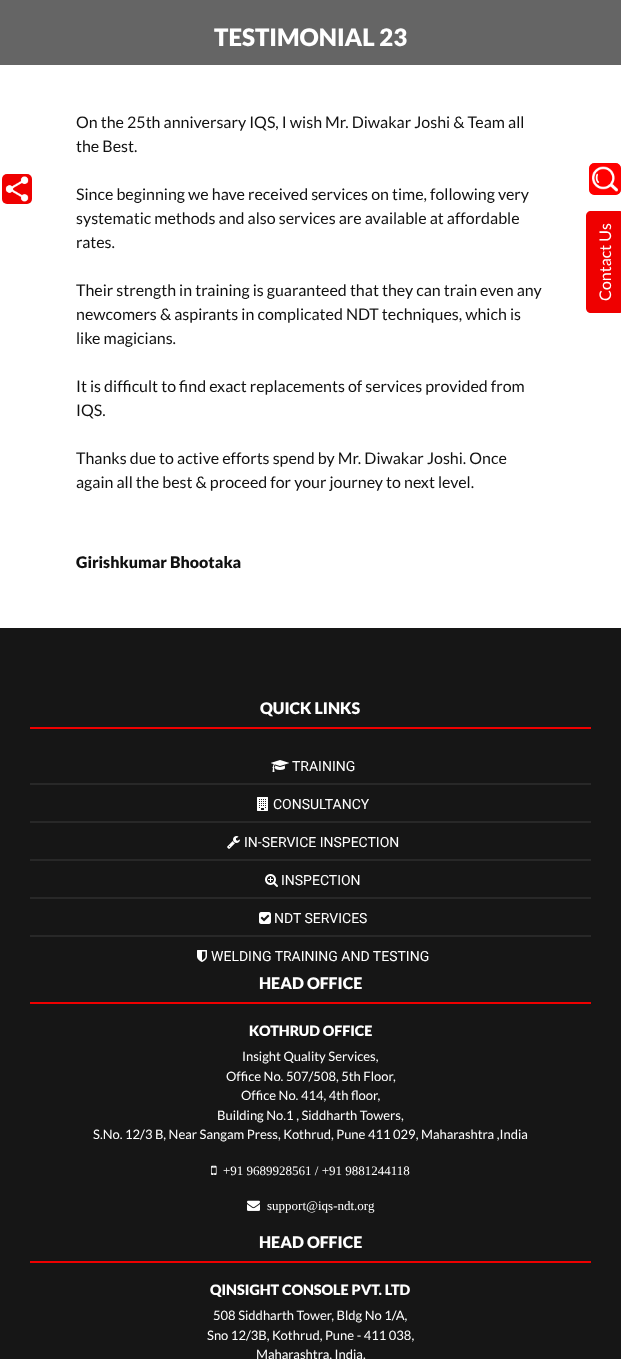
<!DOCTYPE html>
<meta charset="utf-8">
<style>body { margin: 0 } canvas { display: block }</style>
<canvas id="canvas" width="621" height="1359"></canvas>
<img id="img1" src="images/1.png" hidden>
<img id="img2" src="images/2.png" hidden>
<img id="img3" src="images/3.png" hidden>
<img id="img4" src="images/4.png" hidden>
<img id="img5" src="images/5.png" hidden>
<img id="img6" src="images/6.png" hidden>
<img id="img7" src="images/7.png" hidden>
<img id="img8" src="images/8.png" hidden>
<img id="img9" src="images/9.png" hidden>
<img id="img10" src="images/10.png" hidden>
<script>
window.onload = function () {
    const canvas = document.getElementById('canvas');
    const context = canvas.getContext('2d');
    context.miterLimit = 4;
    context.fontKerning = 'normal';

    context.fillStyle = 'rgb(255, 255, 255)';
    context.fillRect(0, 0, 621, 1359);
    context.fillStyle = 'rgb(101, 101, 101)';
    context.fillRect(0, 0, 621, 65);
    context.fillStyle = 'rgb(239, 0, 0)';
    context.beginPath();
    context.roundRect(2, 174, 30, 30, 5);
    context.fill();
    context.drawImage(document.getElementById('img1'), 5, 176, 24, 26);
    context.drawImage(document.getElementById('img2'), 589, 163, 32, 32);
    context.beginPath();
    context.moveTo(586, 308);
    context.lineTo(586, 216);
    context.bezierCurveTo(586, 213, 588, 211, 591, 211);
    context.lineTo(619, 211);
    context.bezierCurveTo(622, 211, 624, 213, 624, 216);
    context.lineTo(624, 308);
    context.bezierCurveTo(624, 311, 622, 313, 619, 313);
    context.lineTo(591, 313);
    context.bezierCurveTo(588, 313, 586, 311, 586, 308);
    context.closePath();
    context.fill();
    context.fillStyle = 'rgb(22, 22, 22)';
    context.fillRect(0, 628, 621, 731);
    context.fillStyle = 'rgb(239, 0, 0)';
    context.fillRect(30, 727, 561, 2);
    context.fillStyle = 'rgb(40, 40, 40)';
    context.fillRect(30, 783, 561, 2);
    context.drawImage(document.getElementById('img3'), 271, 760, 18, 12);
    context.fillRect(30, 821, 561, 2);
    context.drawImage(document.getElementById('img4'), 257, 797, 11, 14);
    context.fillRect(30, 859, 561, 2);
    context.drawImage(document.getElementById('img5'), 227, 836, 13, 13);
    context.fillRect(30, 897, 561, 2);
    context.drawImage(document.getElementById('img6'), 265, 874, 13, 13);
    context.fillRect(30, 935, 561, 2);
    context.drawImage(document.getElementById('img7'), 259, 912, 12, 12);
    context.drawImage(document.getElementById('img8'), 197, 950, 10, 12);
    context.fillStyle = 'rgb(239, 0, 0)';
    context.fillRect(30, 1002, 561, 2);
    context.drawImage(document.getElementById('img9'), 211, 1165, 6, 10);
    context.drawImage(document.getElementById('img10'), 247, 1200, 13, 11);
    context.fillRect(30, 1261, 561, 2);
    context.font = '900 24px Lato';
    context.fillStyle = 'rgb(255, 255, 255)';
    context.fillText('TESTIMONIAL 23', 214, 46);
    context.font = '16px Lato';
    context.save();
    context.translate(611, 301);
    context.rotate(-90 * Math.PI / 180);
    context.fillText('Contact Us', 0, 0);
    context.restore();
    context.fillStyle = 'rgb(17, 17, 17)';
    context.fillText('On the 25th anniversary IQS, I wish Mr. Diwakar Joshi & Team all', 76, 128);
    context.fillText('the Best.', 76, 152);
    context.fillText('Since beginning we have received services on time, following very', 76, 200);
    context.fillText('systematic methods and also services are available at affordable', 76, 224);
    context.fillText('rates.', 76, 248);
    context.fillText('Their strength in training is guaranteed that they can train even any', 76, 296);
    context.fillText('newcomers & aspirants in complicated NDT techniques, which is', 76, 320);
    context.fillText('like magicians.', 76, 344);
    context.fillText('It is difficult to find exact replacements of services provided from', 76, 392);
    context.fillText('IQS.', 76, 416);
    context.fillText('Thanks due to active efforts spend by Mr. Diwakar Joshi. Once', 76, 464);
    context.fillText('again all the best & proceed for your journey to next level.', 76, 488);
    context.font = '900 16px Lato';
    context.fillText('Girishkumar Bhootaka', 76, 568);
    context.fillStyle = 'rgb(255, 255, 255)';
    context.fillText('QUICK LINKS', 260, 714);
    context.font = '14px Roboto';
    context.fillText('TRAINING', 292, 771);
    context.fillText('CONSULTANCY', 273, 809);
    context.fillText('IN-SERVICE INSPECTION', 244, 847);
    context.fillText('INSPECTION', 281, 885);
    context.fillText('NDT SERVICES', 274, 923);
    context.fillText('WELDING TRAINING AND TESTING', 211, 961);
    context.font = '900 16px Lato';
    context.fillText('HEAD OFFICE', 259, 989);
    context.font = '900 14.4px Lato';
    context.fillText('KOTHRUD OFFICE', 249, 1036);
    context.font = '13px Lato';
    context.fillText('Insight Quality Services,', 242, 1061);
    context.fillText('Office No. 507/508, 5th Floor,', 226, 1081);
    context.fillText('Office No. 414, 4th floor,', 241, 1100);
    context.fillText('Building No.1 , Siddharth Towers,', 217, 1120);
    context.fillText('S.No. 12/3 B, Near Sangam Press, Kothrud, Pune 411 029, Maharashtra ,India', 93, 1139);
    context.font = '13px Liberation Serif';
    context.fillText('+91 9689928561 / +91 9881244118', 223, 1175);
    context.fillText('support@iqs-ndt.org', 267, 1210);
    context.font = '900 16px Lato';
    context.fillText('HEAD OFFICE', 259, 1248);
    context.font = '900 14.4px Lato';
    context.fillText('QINSIGHT CONSOLE PVT. LTD', 210, 1295);
    context.font = '13px Lato';
    context.fillText('508 Siddharth Tower, Bldg No 1/A,', 213, 1320);
    context.fillText('Sno 12/3B, Kothrud, Pune - 411 038,', 207, 1340);
    context.fillText('Maharashtra, India.', 256, 1359);
};
</script>
